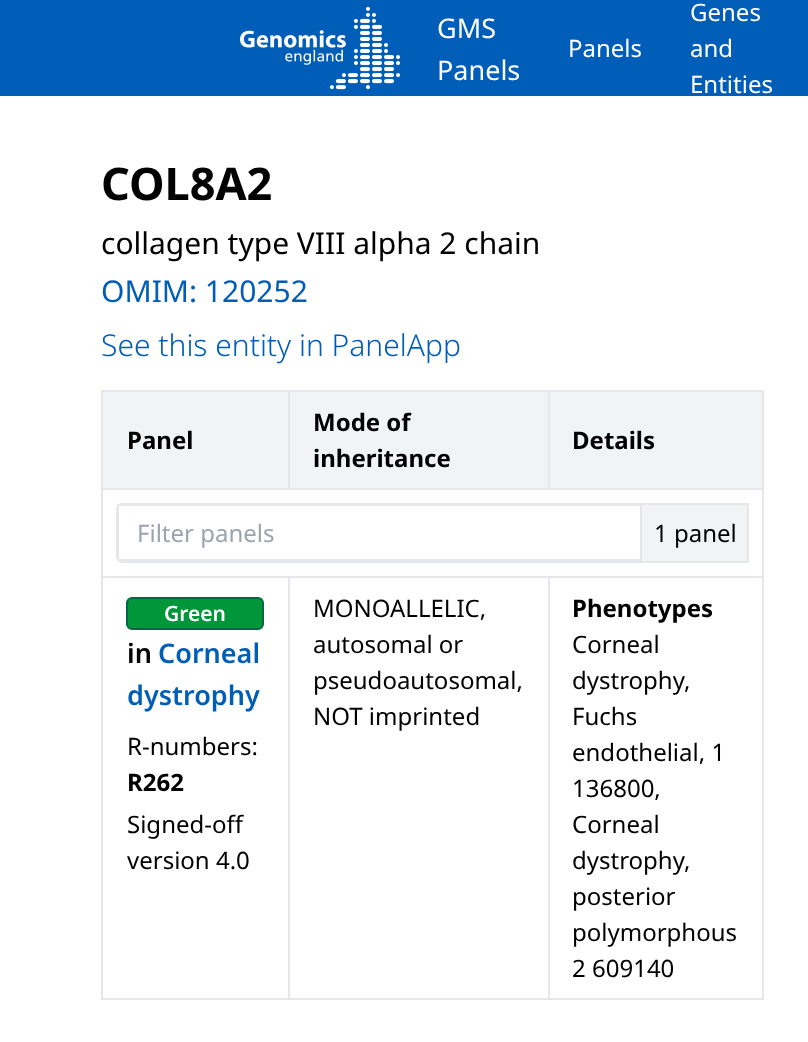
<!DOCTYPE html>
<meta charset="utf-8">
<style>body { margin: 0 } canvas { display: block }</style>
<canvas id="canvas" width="808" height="1042"></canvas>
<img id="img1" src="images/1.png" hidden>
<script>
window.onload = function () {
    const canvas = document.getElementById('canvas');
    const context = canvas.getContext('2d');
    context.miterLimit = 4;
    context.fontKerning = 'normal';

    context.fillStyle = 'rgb(255, 255, 255)';
    context.fillRect(0, 0, 808, 1042);
    context.fillStyle = 'rgb(0, 94, 184)';
    context.fillRect(0, 0, 808, 96);
    context.drawImage(document.getElementById('img1'), 240, 6, 160, 84);
    context.fillStyle = 'rgb(229, 231, 235)';
    context.fillRect(101, 390, 663, 2);
    context.fillRect(762, 390, 2, 609);
    context.fillRect(101, 998, 663, 2);
    context.fillRect(101, 390, 2, 609);
    context.fillStyle = 'rgb(240, 244, 245)';
    context.fillRect(103, 392, 659, 96);
    context.fillStyle = 'rgb(229, 231, 235)';
    context.fillRect(101, 488, 663, 2);
    context.fillRect(288, 390, 2, 99);
    context.fillRect(548, 390, 2, 99);
    context.fillStyle = 'rgb(240, 244, 245)';
    context.beginPath();
    context.roundRect(117, 504, 631, 58, [5, 0, 0, 5]);
    context.fill();
    context.strokeStyle = 'rgb(229, 231, 235)';
    context.lineWidth = 2;
    context.stroke();
    context.fillStyle = 'rgb(255, 255, 255)';
    context.beginPath();
    context.rect(118, 505, 523, 55);
    context.fill();
    context.stroke();
    context.fillStyle = 'rgb(229, 231, 235)';
    context.fillRect(548, 576, 216, 2);
    context.fillRect(548, 576, 2, 423);
    context.fillRect(288, 576, 261, 2);
    context.fillRect(288, 576, 2, 423);
    context.fillRect(101, 576, 189, 2);
    context.fillStyle = 'rgb(0, 150, 57)';
    context.beginPath();
    context.roundRect(127, 598, 136, 31, 5);
    context.fill();
    context.strokeStyle = 'rgb(0, 103, 71)';
    context.stroke();
    context.font = '27px Noto Sans';
    context.fillStyle = 'rgb(255, 255, 255)';
    context.fillText('GMS', 437, 38);
    context.fillText('Panels', 437, 80);
    context.font = '24px Noto Sans';
    context.fillText('Panels', 568, 57);
    context.fillText('Genes', 690, 21);
    context.fillText('and', 690, 57);
    context.fillText('Entities', 690, 93);
    context.font = 'bold 45px Noto Sans';
    context.fillStyle = 'rgb(0, 0, 0)';
    context.fillText('COL8A2', 101, 200);
    context.font = '30px Noto Sans';
    context.fillText('collagen type VIII alpha 2 chain', 101, 254);
    context.fillStyle = 'rgb(0, 94, 184)';
    context.fillText('OMIM: 120252', 101, 302);
    context.font = '300 30px Noto Sans';
    context.fillText('See this entity in PanelApp', 101, 356);
    context.font = 'bold 24px Noto Sans';
    context.fillStyle = 'rgb(0, 0, 0)';
    context.fillText('Panel', 127, 449);
    context.fillText('Mode of', 313, 431);
    context.fillText('inheritance', 313, 467);
    context.fillText('Details', 572, 449);
    context.font = '24px Noto Sans';
    context.fillStyle = 'rgb(156, 163, 175)';
    context.fillText('Filter panels', 137, 542);
    context.fillStyle = 'rgb(0, 0, 0)';
    context.fillText('1 panel', 654, 542);
    context.font = '600 21px Noto Sans';
    context.fillStyle = 'rgb(255, 255, 255)';
    context.fillText('Green', 164, 621);
    context.font = '600 27px Noto Sans';
    context.fillStyle = 'rgb(0, 0, 0)';
    context.fillText('in', 127, 663);
    context.fillStyle = 'rgb(0, 94, 184)';
    context.fillText('Corneal', 158, 663);
    context.fillText('dystrophy', 127, 705);
    context.font = '24px Noto Sans';
    context.fillStyle = 'rgb(0, 0, 0)';
    context.fillText('R-numbers:', 127, 755);
    context.font = 'bold 24px Noto Sans';
    context.fillText('R262', 127, 791);
    context.font = '24px Noto Sans';
    context.fillText('Signed-off', 127, 833);
    context.fillText('version 4.0', 127, 869);
    context.fillText('MONOALLELIC,', 313, 617);
    context.fillText('autosomal or', 313, 653);
    context.fillText('pseudoautosomal,', 313, 689);
    context.fillText('NOT imprinted', 313, 725);
    context.font = 'bold 24px Noto Sans';
    context.fillText('Phenotypes', 572, 617);
    context.font = '24px Noto Sans';
    context.fillText('Corneal', 572, 653);
    context.fillText('dystrophy,', 572, 689);
    context.fillText('Fuchs', 572, 725);
    context.fillText('endothelial, 1', 572, 761);
    context.fillText('136800,', 572, 797);
    context.fillText('Corneal', 572, 833);
    context.fillText('dystrophy,', 572, 869);
    context.fillText('posterior', 572, 905);
    context.fillText('polymorphous', 572, 941);
    context.fillText('2 609140', 572, 977);
};
</script>
